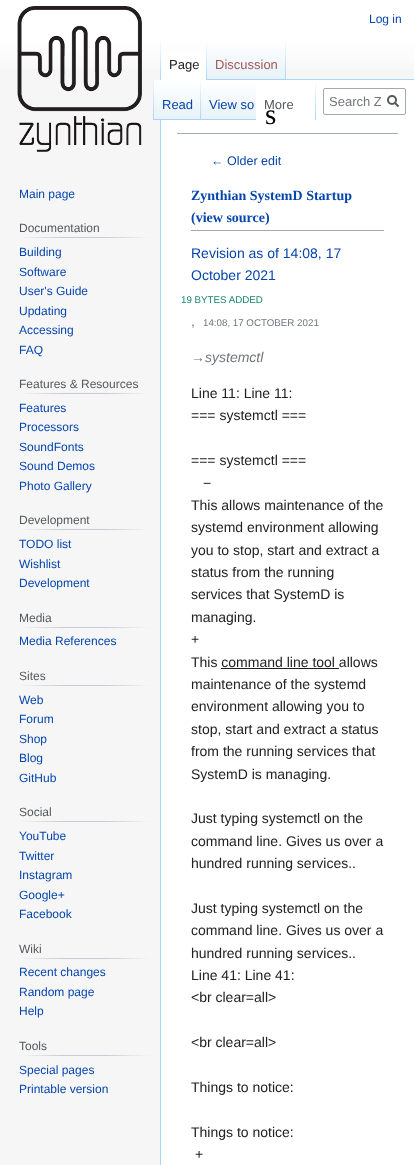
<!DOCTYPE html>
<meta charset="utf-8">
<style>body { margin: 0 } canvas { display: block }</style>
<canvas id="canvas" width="414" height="1165"></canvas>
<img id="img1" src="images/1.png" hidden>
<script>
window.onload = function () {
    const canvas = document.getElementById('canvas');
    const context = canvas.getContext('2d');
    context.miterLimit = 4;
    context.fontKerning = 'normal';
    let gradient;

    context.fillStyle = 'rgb(246, 246, 246)';
    context.fillRect(0, 0, 414, 1165);
    gradient = context.createLinearGradient(207, 0, 207, 80);
    gradient.addColorStop(0.5, 'rgb(255, 255, 255)');
    gradient.addColorStop(1, 'rgb(246, 246, 246)');
    context.fillStyle = gradient;
    context.fillRect(0, 0, 414, 69);
    context.fillStyle = 'rgb(167, 215, 249)';
    context.fillRect(160, 79, 1, 1086);
    gradient = context.createLinearGradient(161, 40, 161, 80);
    gradient.addColorStop(0, 'rgba(167, 215, 249, 0)');
    gradient.addColorStop(1, 'rgb(167, 215, 249)');
    context.fillStyle = gradient;
    context.fillRect(160, 40, 1, 40);
    context.fillStyle = 'rgb(255, 255, 255)';
    context.fillRect(161, 51, 45, 29);
    gradient = context.createLinearGradient(207, 40, 207, 80);
    gradient.addColorStop(0, 'rgb(255, 255, 255)');
    gradient.addColorStop(1, 'rgb(167, 215, 249)');
    context.fillStyle = gradient;
    context.fillRect(206, 40, 1, 40);
    gradient = context.createLinearGradient(247, 80, 247, 40);
    gradient.addColorStop(0, 'rgb(119, 193, 246)');
    gradient.addColorStop(0.03, 'rgb(232, 242, 248)');
    gradient.addColorStop(1, 'rgb(255, 255, 255)');
    context.fillStyle = gradient;
    context.fillRect(207, 46, 79, 34);
    gradient = context.createLinearGradient(286, 40, 286, 80);
    gradient.addColorStop(0, 'rgba(167, 215, 249, 0)');
    gradient.addColorStop(1, 'rgb(167, 215, 249)');
    context.fillStyle = gradient;
    context.fillRect(285, 40, 1, 40);
    gradient = context.createLinearGradient(154, 80, 154, 120);
    gradient.addColorStop(0, 'rgb(246, 246, 246)');
    gradient.addColorStop(1, 'rgb(167, 215, 249)');
    context.fillStyle = gradient;
    context.fillRect(153, 80, 1, 40);
    context.fillStyle = 'rgb(255, 255, 255)';
    context.fillRect(161, 80, 253, 1085);
    gradient = context.createLinearGradient(178, 120, 178, 80);
    gradient.addColorStop(0, 'rgb(119, 193, 246)');
    gradient.addColorStop(0.03, 'rgb(232, 242, 248)');
    gradient.addColorStop(1, 'rgb(255, 255, 255)');
    context.fillStyle = gradient;
    context.fillRect(154, 80, 47, 40);
    gradient = context.createLinearGradient(201, 80, 201, 120);
    gradient.addColorStop(0, 'rgba(167, 215, 249, 0)');
    gradient.addColorStop(1, 'rgb(167, 215, 249)');
    context.fillStyle = gradient;
    context.fillRect(200, 80, 1, 40);
    gradient = context.createLinearGradient(229, 120, 229, 80);
    gradient.addColorStop(0, 'rgb(119, 193, 246)');
    gradient.addColorStop(0.03, 'rgb(232, 242, 248)');
    gradient.addColorStop(1, 'rgb(255, 255, 255)');
    context.fillStyle = gradient;
    context.fillRect(201, 84, 55, 36);
    gradient = context.createLinearGradient(316, 80, 316, 120);
    gradient.addColorStop(0, 'rgb(255, 255, 255)');
    gradient.addColorStop(1, 'rgb(167, 215, 249)');
    context.fillStyle = gradient;
    context.fillRect(315, 80, 1, 40);
    context.beginPath();
    context.roundRect(323.5, 88.5, 82, 26, 1.5);
    context.strokeStyle = 'rgb(162, 169, 177)';
    context.stroke();
    context.beginPath();
    context.moveTo(398.5, 106.5);
    context.lineTo(394.5, 102.5);
    context.strokeStyle = 'rgb(84, 89, 93)';
    context.lineWidth = 2;
    context.stroke();
    context.beginPath();
    context.arc(392, 100, 4, 0, 2 * Math.PI);
    context.stroke();
    context.drawImage(document.getElementById('img1'), 17, 6, 125, 146);
    gradient = context.createLinearGradient(19, 238, 150, 238);
    gradient.addColorStop(0, 'rgb(246, 246, 246)');
    gradient.addColorStop(0.33, 'rgb(200, 204, 209)');
    gradient.addColorStop(0.66, 'rgb(200, 204, 209)');
    gradient.addColorStop(1, 'rgb(246, 246, 246)');
    context.fillStyle = gradient;
    context.fillRect(19, 237, 131, 1);
    gradient = context.createLinearGradient(19, 394, 150, 394);
    gradient.addColorStop(0, 'rgb(246, 246, 246)');
    gradient.addColorStop(0.33, 'rgb(200, 204, 209)');
    gradient.addColorStop(0.66, 'rgb(200, 204, 209)');
    gradient.addColorStop(1, 'rgb(246, 246, 246)');
    context.fillStyle = gradient;
    context.fillRect(19, 393, 131, 1);
    gradient = context.createLinearGradient(19, 530, 150, 530);
    gradient.addColorStop(0, 'rgb(246, 246, 246)');
    gradient.addColorStop(0.33, 'rgb(200, 204, 209)');
    gradient.addColorStop(0.66, 'rgb(200, 204, 209)');
    gradient.addColorStop(1, 'rgb(246, 246, 246)');
    context.fillStyle = gradient;
    context.fillRect(19, 529, 131, 1);
    gradient = context.createLinearGradient(19, 628, 150, 628);
    gradient.addColorStop(0, 'rgb(246, 246, 246)');
    gradient.addColorStop(0.33, 'rgb(200, 204, 209)');
    gradient.addColorStop(0.66, 'rgb(200, 204, 209)');
    gradient.addColorStop(1, 'rgb(246, 246, 246)');
    context.fillStyle = gradient;
    context.fillRect(19, 627, 131, 1);
    gradient = context.createLinearGradient(19, 686, 150, 686);
    gradient.addColorStop(0, 'rgb(246, 246, 246)');
    gradient.addColorStop(0.33, 'rgb(200, 204, 209)');
    gradient.addColorStop(0.66, 'rgb(200, 204, 209)');
    gradient.addColorStop(1, 'rgb(246, 246, 246)');
    context.fillStyle = gradient;
    context.fillRect(19, 685, 131, 1);
    gradient = context.createLinearGradient(19, 822, 150, 822);
    gradient.addColorStop(0, 'rgb(246, 246, 246)');
    gradient.addColorStop(0.33, 'rgb(200, 204, 209)');
    gradient.addColorStop(0.66, 'rgb(200, 204, 209)');
    gradient.addColorStop(1, 'rgb(246, 246, 246)');
    context.fillStyle = gradient;
    context.fillRect(19, 821, 131, 1);
    gradient = context.createLinearGradient(19, 959, 150, 959);
    gradient.addColorStop(0, 'rgb(246, 246, 246)');
    gradient.addColorStop(0.33, 'rgb(200, 204, 209)');
    gradient.addColorStop(0.66, 'rgb(200, 204, 209)');
    gradient.addColorStop(1, 'rgb(246, 246, 246)');
    context.fillStyle = gradient;
    context.fillRect(19, 958, 131, 1);
    gradient = context.createLinearGradient(19, 1056, 150, 1056);
    gradient.addColorStop(0, 'rgb(246, 246, 246)');
    gradient.addColorStop(0.33, 'rgb(200, 204, 209)');
    gradient.addColorStop(0.66, 'rgb(200, 204, 209)');
    gradient.addColorStop(1, 'rgb(246, 246, 246)');
    context.fillStyle = gradient;
    context.fillRect(19, 1055, 131, 1);
    context.fillStyle = 'rgb(167, 215, 249)';
    context.fillRect(286, 79, 128, 1);
    context.fillStyle = 'rgb(162, 169, 177)';
    context.fillRect(177, 133, 221, 1);
    context.fillRect(191, 230, 193, 1);
    context.fillStyle = 'rgb(32, 33, 34)';
    context.fillRect(221, 668, 118, 1);
    context.font = '12px Liberation Sans';
    context.fillStyle = 'rgb(6, 69, 173)';
    context.fillText('Log in', 369, 23);
    context.font = '13px Liberation Sans';
    context.fillStyle = 'rgb(32, 33, 34)';
    context.fillText('Page', 169, 69);
    context.fillStyle = 'rgb(165, 88, 88)';
    context.fillText('Discussion', 215, 69);
    context.fillStyle = 'rgb(6, 69, 173)';
    context.fillText('Read', 162, 109);
    context.fillText('View so', 209, 109);
    context.fillStyle = 'rgb(84, 89, 93)';
    context.fillText('More', 264, 109);
    context.save();
    context.beginPath();
    context.rect(329, 94, 52, 15);
    context.clip();
    context.fillStyle = 'rgb(114, 119, 125)';
    context.fillText('Search Z', 329, 106);
    context.restore();
    context.font = '12px Liberation Sans';
    context.fillStyle = 'rgb(6, 69, 173)';
    context.fillText('Main page', 19, 198);
    context.fillStyle = 'rgb(84, 89, 93)';
    context.fillText('Documentation', 19, 232);
    context.fillStyle = 'rgb(6, 69, 173)';
    context.fillText('Building', 19, 256);
    context.fillText('Software', 19, 276);
    context.fillText('User\'s Guide', 19, 295);
    context.fillText('Updating', 19, 315);
    context.fillText('Accessing', 19, 334);
    context.fillText('FAQ', 19, 354);
    context.fillStyle = 'rgb(84, 89, 93)';
    context.fillText('Features & Resources', 19, 388);
    context.fillStyle = 'rgb(6, 69, 173)';
    context.fillText('Features', 19, 412);
    context.fillText('Processors', 19, 431);
    context.fillText('SoundFonts', 19, 451);
    context.fillText('Sound Demos', 19, 470);
    context.fillText('Photo Gallery', 19, 490);
    context.fillStyle = 'rgb(84, 89, 93)';
    context.fillText('Development', 19, 524);
    context.fillStyle = 'rgb(6, 69, 173)';
    context.fillText('TODO list', 19, 548);
    context.fillText('Wishlist', 19, 568);
    context.fillText('Development', 19, 587);
    context.fillStyle = 'rgb(84, 89, 93)';
    context.fillText('Media', 19, 622);
    context.fillStyle = 'rgb(6, 69, 173)';
    context.fillText('Media References', 19, 645);
    context.fillStyle = 'rgb(84, 89, 93)';
    context.fillText('Sites', 19, 680);
    context.fillStyle = 'rgb(6, 69, 173)';
    context.fillText('Web', 19, 704);
    context.fillText('Forum', 19, 723);
    context.fillText('Shop', 19, 743);
    context.fillText('Blog', 19, 762);
    context.fillText('GitHub', 19, 782);
    context.fillStyle = 'rgb(84, 89, 93)';
    context.fillText('Social', 19, 816);
    context.fillStyle = 'rgb(6, 69, 173)';
    context.fillText('YouTube', 19, 840);
    context.fillText('Twitter', 19, 860);
    context.fillText('Instagram', 19, 879);
    context.fillText('Google+', 19, 899);
    context.fillText('Facebook', 19, 918);
    context.fillStyle = 'rgb(84, 89, 93)';
    context.fillText('Wiki', 19, 953);
    context.fillStyle = 'rgb(6, 69, 173)';
    context.fillText('Recent changes', 19, 976);
    context.fillText('Random page', 19, 996);
    context.fillText('Help', 19, 1015);
    context.fillStyle = 'rgb(84, 89, 93)';
    context.fillText('Tools', 19, 1050);
    context.fillStyle = 'rgb(6, 69, 173)';
    context.fillText('Special pages', 19, 1074);
    context.fillText('Printable version', 19, 1093);
    context.font = '29px Liberation Serif';
    context.fillStyle = 'rgb(0, 0, 0)';
    context.fillText('s', 265, 124);
    context.font = '12.5px Liberation Sans';
    context.fillStyle = 'rgb(6, 69, 173)';
    context.fillText('← Older edit', 211, 165);
    context.font = 'bold 14px Liberation Serif';
    context.fillText('Zynthian SystemD Startup', 191, 200);
    context.fillText('(view source)', 191, 222);
    context.font = '14px Liberation Sans';
    context.fillText('Revision as of 14:08, 17', 191, 258);
    context.fillText('October 2021', 191, 280);
    context.font = '9.75px Liberation Sans';
    context.fillStyle = 'rgb(20, 134, 109)';
    context.fillText('19 BYTES ADDED', 181, 303);
    context.font = '14px Liberation Sans';
    context.fillStyle = 'rgb(114, 119, 125)';
    context.fillText(',', 191, 326);
    context.font = '9.75px Liberation Sans';
    context.fillText('14:08, 17 OCTOBER 2021', 203, 326);
    context.font = 'italic 14px Liberation Sans';
    context.fillText('→systemctl', 191, 362);
    context.font = '14px Liberation Sans';
    context.fillStyle = 'rgb(32, 33, 34)';
    context.fillText('Line 11: Line 11:', 191, 398);
    context.fillText('=== systemctl ===', 191, 420);
    context.fillText('=== systemctl ===', 191, 465);
    context.fillText('−', 203, 488);
    context.fillText('This allows maintenance of the', 191, 510);
    context.fillText('systemd environment allowing', 191, 532);
    context.fillText('you to stop, start and extract a', 191, 555);
    context.fillText('status from the running', 191, 577);
    context.fillText('services that SystemD is', 191, 599);
    context.fillText('managing.', 191, 622);
    context.fillText('+', 191, 644);
    context.fillText('This command line tool allows', 191, 667);
    context.fillText('maintenance of the systemd', 191, 689);
    context.fillText('environment allowing you to', 191, 711);
    context.fillText('stop, start and extract a status', 191, 734);
    context.fillText('from the running services that', 191, 756);
    context.fillText('SystemD is managing.', 191, 779);
    context.fillText('Just typing systemctl on the', 191, 823);
    context.fillText('command line. Gives us over a', 191, 846);
    context.fillText('hundred running services..', 191, 868);
    context.fillText('Just typing systemctl on the', 191, 913);
    context.fillText('command line. Gives us over a', 191, 935);
    context.fillText('hundred running services..', 191, 958);
    context.fillText('Line 41: Line 41:', 191, 980);
    context.fillText('<br clear=all>', 191, 1002);
    context.fillText('<br clear=all>', 191, 1047);
    context.fillText('Things to notice:', 191, 1092);
    context.fillText('Things to notice:', 191, 1137);
    context.fillText('+', 195, 1159);
};
</script>
